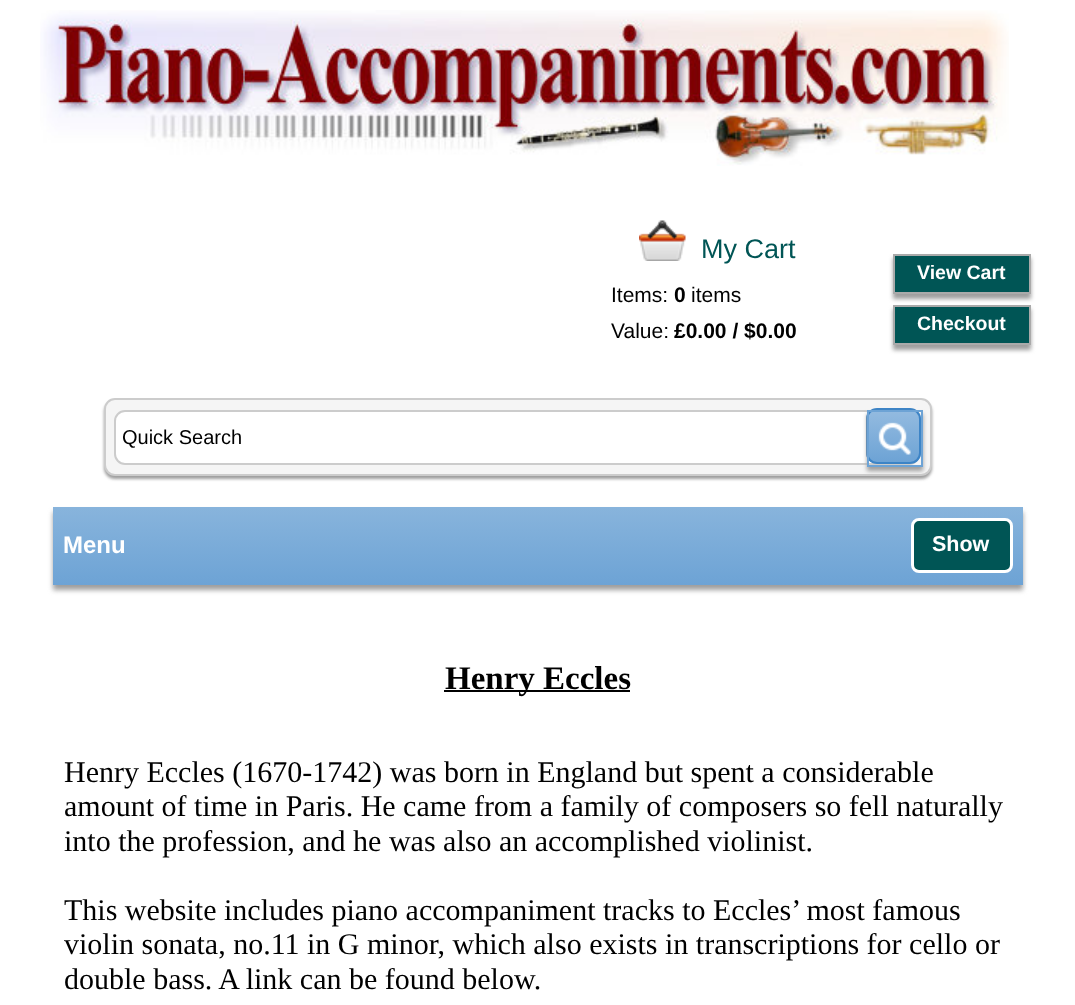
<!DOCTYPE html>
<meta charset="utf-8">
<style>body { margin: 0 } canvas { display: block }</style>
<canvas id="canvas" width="1075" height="1005"></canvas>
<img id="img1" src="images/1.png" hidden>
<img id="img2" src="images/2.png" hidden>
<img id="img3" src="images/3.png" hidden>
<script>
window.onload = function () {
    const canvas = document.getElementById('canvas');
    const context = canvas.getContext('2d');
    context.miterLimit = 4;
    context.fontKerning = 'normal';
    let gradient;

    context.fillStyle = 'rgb(255, 255, 255)';
    context.fillRect(0, 0, 1075, 1005);
    context.drawImage(document.getElementById('img1'), 40, 10, 969, 156);
    context.drawImage(document.getElementById('img2'), 639, 220, 47, 41);
    context.fillStyle = 'rgb(158, 158, 158)';
    context.filter = 'blur(2px)';
    context.beginPath();
    context.rect(893, 258, 138, 41);
    context.fill();
    context.filter = 'none';
    context.fillStyle = 'rgb(0, 85, 85)';
    context.beginPath();
    context.rect(894, 255, 136, 38);
    context.fill();
    context.strokeStyle = 'rgb(170, 170, 170)';
    context.lineWidth = 2;
    context.stroke();
    context.fillStyle = 'rgb(158, 158, 158)';
    context.filter = 'blur(2px)';
    context.beginPath();
    context.rect(893, 309, 138, 41);
    context.fill();
    context.filter = 'none';
    context.fillStyle = 'rgb(0, 85, 85)';
    context.beginPath();
    context.rect(894, 306, 136, 38);
    context.fill();
    context.stroke();
    context.fillStyle = 'rgb(158, 158, 158)';
    context.filter = 'blur(1.5px)';
    context.beginPath();
    context.roundRect(104, 401, 828, 78, 11);
    context.fill();
    context.filter = 'none';
    context.fillStyle = 'rgb(245, 245, 245)';
    context.beginPath();
    context.roundRect(105, 399, 826, 76, 10);
    context.fill();
    context.strokeStyle = 'rgb(204, 204, 204)';
    context.stroke();
    context.fillStyle = 'rgb(255, 255, 255)';
    context.beginPath();
    context.roundRect(115, 411, 804, 53, 10);
    context.fill();
    context.stroke();
    context.save();
    context.beginPath();
    context.roundRect(866, 408, 55, 56, 11);
    context.clip();
    gradient = context.createLinearGradient(893, 410, 893, 462);
    gradient.addColorStop(0, 'rgb(148, 187, 224)');
    gradient.addColorStop(1, 'rgb(109, 163, 213)');
    context.fillStyle = gradient;
    context.fillRect(866, 412, 55, 50);
    context.restore();
    context.beginPath();
    context.roundRect(867, 409, 53, 54, 10);
    context.strokeStyle = 'rgb(61, 132, 198)';
    context.stroke();
    context.save();
    context.beginPath();
    context.moveTo(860, 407);
    context.lineTo(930, 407);
    context.lineTo(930, 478);
    context.lineTo(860, 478);
    context.closePath();
    context.moveTo(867, 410);
    context.lineTo(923, 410);
    context.lineTo(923, 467);
    context.lineTo(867, 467);
    context.closePath();
    context.clip('evenodd');
    context.fillStyle = 'rgb(158, 158, 158)';
    context.filter = 'blur(2px)';
    context.beginPath();
    context.rect(867, 414, 56, 57);
    context.fill();
    context.filter = 'none';
    context.restore();
    context.drawImage(document.getElementById('img3'), 878, 422, 33, 33);
    context.strokeStyle = 'rgb(109, 163, 213)';
    context.strokeRect(868, 411, 54, 55);
    context.fillStyle = 'rgb(158, 158, 158)';
    context.filter = 'blur(2.5px)';
    context.beginPath();
    context.rect(53, 512, 970, 78);
    context.fill();
    context.filter = 'none';
    gradient = context.createLinearGradient(538, 507, 538, 585);
    gradient.addColorStop(0, 'rgb(136, 180, 220)');
    gradient.addColorStop(1, 'rgb(109, 163, 213)');
    context.fillStyle = gradient;
    context.fillRect(53, 507, 970, 78);
    context.fillStyle = 'rgb(0, 85, 85)';
    context.beginPath();
    context.roundRect(912.5, 519.5, 99, 52, 6.5);
    context.fill();
    context.strokeStyle = 'rgb(255, 255, 255)';
    context.lineWidth = 3;
    context.stroke();
    context.fillStyle = 'rgb(0, 0, 0)';
    context.fillRect(444, 690, 186, 2);
    context.font = '27px Liberation Sans';
    context.fillStyle = 'rgb(0, 85, 85)';
    context.fillText('My Cart', 701, 258);
    context.font = '21px Liberation Sans';
    context.fillStyle = 'rgb(0, 0, 0)';
    context.fillText('Items:', 611, 302);
    context.font = 'bold 21px Liberation Sans';
    context.fillText('0', 674, 302);
    context.font = '21px Liberation Sans';
    context.fillText('items', 691, 302);
    context.fillText('Value:', 611, 338);
    context.font = 'bold 21px Liberation Sans';
    context.fillText('£0.00 / $0.00', 674, 338);
    context.font = 'bold 19.5px Liberation Sans';
    context.fillStyle = 'rgb(255, 255, 255)';
    context.fillText('View Cart', 917, 279);
    context.fillText('Checkout', 917, 330);
    context.font = '20px Liberation Sans';
    context.fillStyle = 'rgb(0, 0, 0)';
    context.fillText('Quick Search', 122, 444);
    context.font = 'bold 24px Liberation Sans';
    context.fillStyle = 'rgb(255, 255, 255)';
    context.fillText('Menu', 63, 553);
    context.font = 'bold 21.5px Liberation Sans';
    context.fillText('Show', 932, 551);
    context.font = 'bold 33px Liberation Serif';
    context.fillStyle = 'rgb(0, 0, 0)';
    context.fillText('Henry Eccles', 445, 689);
    context.font = '30px Liberation Serif';
    context.fillText('Henry Eccles (1670-1742) was born in England but spent a considerable', 64, 782);
    context.fillText('amount of time in Paris. He came from a family of composers so fell naturally', 64, 816);
    context.fillText('into the profession, and he was also an accomplished violinist.', 64, 851);
    context.fillText('This website includes piano accompaniment tracks to Eccles’ most famous', 64, 920);
    context.fillText('violin sonata, no.11 in G minor, which also exists in transcriptions for cello or', 64, 954);
    context.fillText('double bass. A link can be found below.', 64, 989);
};
</script>
